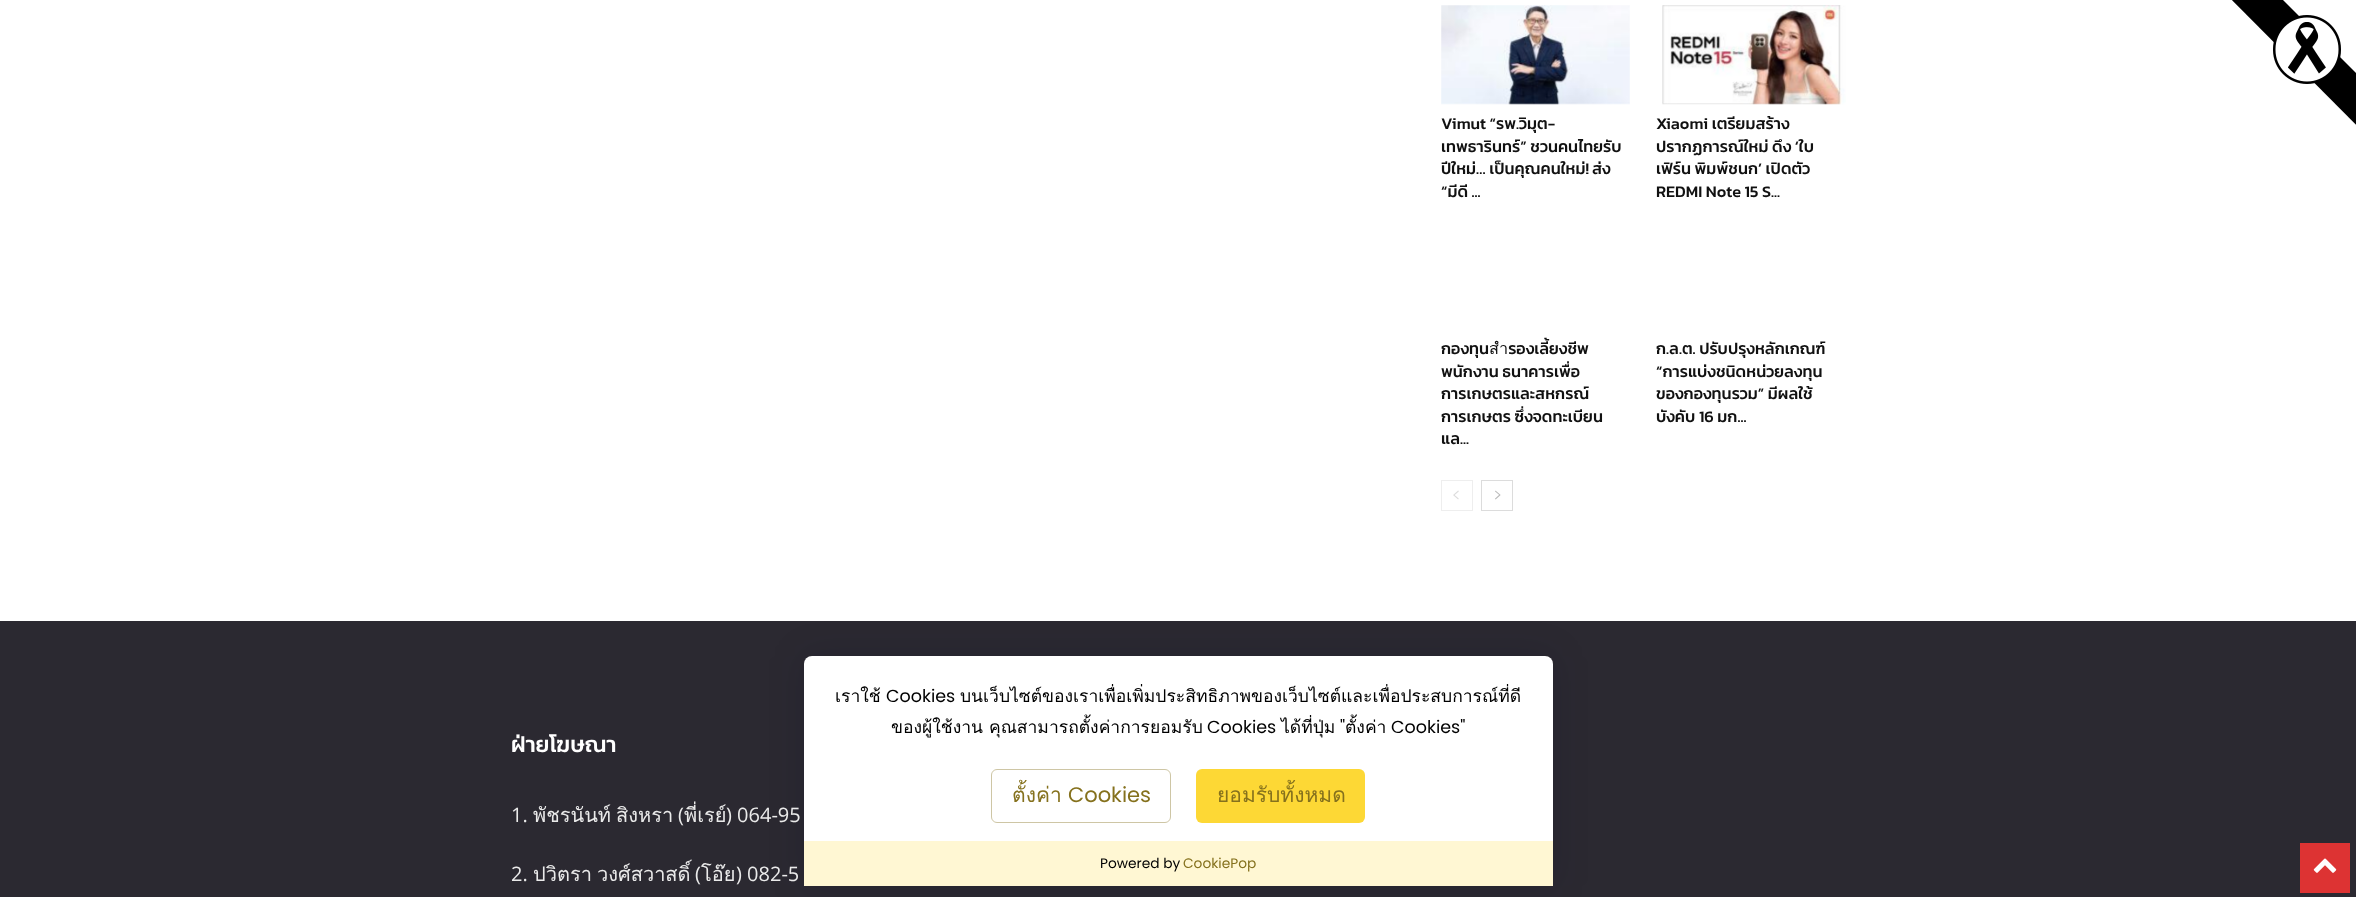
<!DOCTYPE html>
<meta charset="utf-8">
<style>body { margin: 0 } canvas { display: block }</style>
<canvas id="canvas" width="2356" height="897"></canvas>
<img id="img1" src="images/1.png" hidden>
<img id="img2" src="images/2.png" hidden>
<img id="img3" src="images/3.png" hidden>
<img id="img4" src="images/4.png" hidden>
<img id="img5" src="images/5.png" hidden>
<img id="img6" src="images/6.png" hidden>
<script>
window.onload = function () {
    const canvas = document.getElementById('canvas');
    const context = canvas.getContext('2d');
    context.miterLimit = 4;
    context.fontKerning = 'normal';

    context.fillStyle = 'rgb(255, 255, 255)';
    context.fillRect(0, 0, 2356, 897);
    context.fillStyle = 'rgb(0, 0, 0)';
    context.beginPath();
    context.moveTo(2231, -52);
    context.lineTo(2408, 125);
    context.lineTo(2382, 151);
    context.lineTo(2206, -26);
    context.closePath();
    context.fill();
    context.drawImage(document.getElementById('img1'), 2273, 15, 68, 69);
    context.drawImage(document.getElementById('img2'), 1441, 5, 189, 100);
    context.drawImage(document.getElementById('img3'), 1662, 5, 184, 100);
    context.strokeStyle = 'rgb(238, 238, 238)';
    context.strokeRect(1441.5, 480.5, 31, 30);
    context.drawImage(document.getElementById('img4'), 1453, 490, 6, 10);
    context.strokeStyle = 'rgb(220, 220, 220)';
    context.strokeRect(1481.5, 480.5, 31, 30);
    context.drawImage(document.getElementById('img5'), 1495, 490, 6, 10);
    context.fillStyle = 'rgb(43, 41, 49)';
    context.fillRect(0, 621, 2356, 276);
    context.fillStyle = 'rgba(5, 0, 31, 0.15)';
    context.filter = 'blur(17.5px)';
    context.beginPath();
    context.roundRect(804, 656, 749, 230, 8);
    context.fill();
    context.filter = 'none';
    context.fillStyle = 'rgb(255, 255, 255)';
    context.beginPath();
    context.roundRect(804, 656, 749, 230, 8);
    context.fill();
    context.beginPath();
    context.roundRect(991.5, 769.5, 179, 53, 5.5);
    context.strokeStyle = 'rgb(206, 198, 165)';
    context.stroke();
    context.fillStyle = 'rgb(253, 216, 53)';
    context.beginPath();
    context.roundRect(1196, 769, 169, 54, 6);
    context.fill();
    context.fillStyle = 'rgb(255, 247, 211)';
    context.fillRect(804, 841, 749, 45);
    context.fillStyle = 'rgb(221, 51, 51)';
    context.fillRect(2300, 843, 50, 50);
    context.drawImage(document.getElementById('img6'), 2313, 858, 24, 15);
    context.font = '500 16.25px Kanit';
    context.fillStyle = 'rgb(17, 17, 17)';
    context.fillText('Vimut “รพ.วิมุต-', 1441, 129);
    context.fillText('เทพธารินทร์” ชวนคนไทยรับ', 1441, 152);
    context.save();
    context.beginPath();
    context.rect(1441, 0, 405, 511);
    context.clip();
    context.fillText('ปีใหม่… เป็นคุณคนใหม่!', 1441, 174);
    context.restore();
    context.fillText('ส่ง', 1592, 174);
    context.save();
    context.beginPath();
    context.rect(1441, 0, 405, 511);
    context.clip();
    context.fillText('“มีดี ...', 1441, 197);
    context.restore();
    context.fillText('Xiaomi เตรียมสร้าง', 1656, 129);
    context.fillText('ปรากฏการณ์ใหม่ ดึง ‘ใบ', 1656, 152);
    context.fillText('เฟิร์น พิมพ์ชนก’ เปิดตัว', 1656, 174);
    context.fillText('REDMI Note 15 S...', 1656, 197);
    context.fillText('กองทุนสำรองเลี้ยงชีพ', 1441, 354);
    context.fillText('พนักงาน ธนาคารเพื่อ', 1441, 377);
    context.fillText('การเกษตรและสหกรณ์', 1441, 399);
    context.fillText('การเกษตร ซึ่งจดทะเบียน', 1441, 422);
    context.fillText('แล...', 1441, 444);
    context.fillText('ก.ล.ต. ปรับปรุงหลักเกณฑ์', 1656, 354);
    context.fillText('“การแบ่งชนิดหน่วยลงทุน', 1656, 377);
    context.fillText('ของกองทุนรวม” มีผลใช้', 1656, 399);
    context.fillText('บังคับ 16 มก...', 1656, 422);
    context.save();
    context.beginPath();
    context.rect(511, 724, 1335, 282);
    context.clip();
    context.font = '500 22.5px Kanit';
    context.fillStyle = 'rgb(255, 255, 255)';
    context.fillText('ฝ่ายโฆษณา', 511, 752);
    context.restore();
    context.font = '20px Open Sans';
    context.fillStyle = 'rgb(234, 234, 234)';
    context.fillText('1.', 511, 822);
    context.font = '20px Loma';
    context.fillText('พัชรนันท์', 533, 822);
    context.fillText('สิงหรา', 616, 822);
    context.font = '20px Open Sans';
    context.fillText('(', 678, 822);
    context.font = '20px Loma';
    context.fillText('พี่เรย์', 684, 822);
    context.font = '20px Open Sans';
    context.fillText(') 064-95', 726, 822);
    context.fillText('2.', 511, 881);
    context.font = '20px Loma';
    context.fillText('ปวิตรา', 533, 881);
    context.fillText('วงศ์สวาสดิ์', 597, 881);
    context.font = '20px Open Sans';
    context.fillText('(', 695, 881);
    context.font = '20px Loma';
    context.fillText('โอ๊ย', 701, 881);
    context.font = '20px Open Sans';
    context.fillText(') 082-5', 736, 881);
    context.font = '17.5px Loma';
    context.fillStyle = 'rgb(0, 0, 0)';
    context.fillText('เราใช้', 835, 702);
    context.font = '17.5px Poppins';
    context.fillText('Cookies', 886, 702);
    context.font = '17.5px Loma';
    context.fillText('บนเว็บไซต์ของเราเพื่อเพิ่มประสิทธิภาพของเว็บไซต์และเพื่อประสบการณ์ที่ดี', 960, 702);
    context.fillText('ของผู้ใช้งาน คุณสามารถตั้งค่าการยอมรับ', 891, 733);
    context.font = '17.5px Poppins';
    context.fillText('Cookies', 1207, 733);
    context.font = '17.5px Loma';
    context.fillText('ได้ที่ปุ่ม', 1281, 733);
    context.font = '17.5px Poppins';
    context.fillText('"', 1340, 733);
    context.font = '17.5px Loma';
    context.fillText('ตั้งค่า', 1345, 733);
    context.font = '17.5px Poppins';
    context.fillText('Cookies"', 1391, 733);
    context.font = '21px Loma';
    context.fillStyle = 'rgb(133, 113, 29)';
    context.fillText('ตั้งค่า', 1012, 802);
    context.font = '21px Poppins';
    context.fillText('Cookies', 1068, 802);
    context.font = '21px Loma';
    context.fillText('ยอมรับทั้งหมด', 1217, 802);
    context.font = '13.75px Poppins';
    context.fillStyle = 'rgb(0, 0, 0)';
    context.fillText('Powered by', 1100, 868);
    context.fillStyle = 'rgb(133, 113, 29)';
    context.fillText('CookiePop', 1183, 868);
};
</script>
